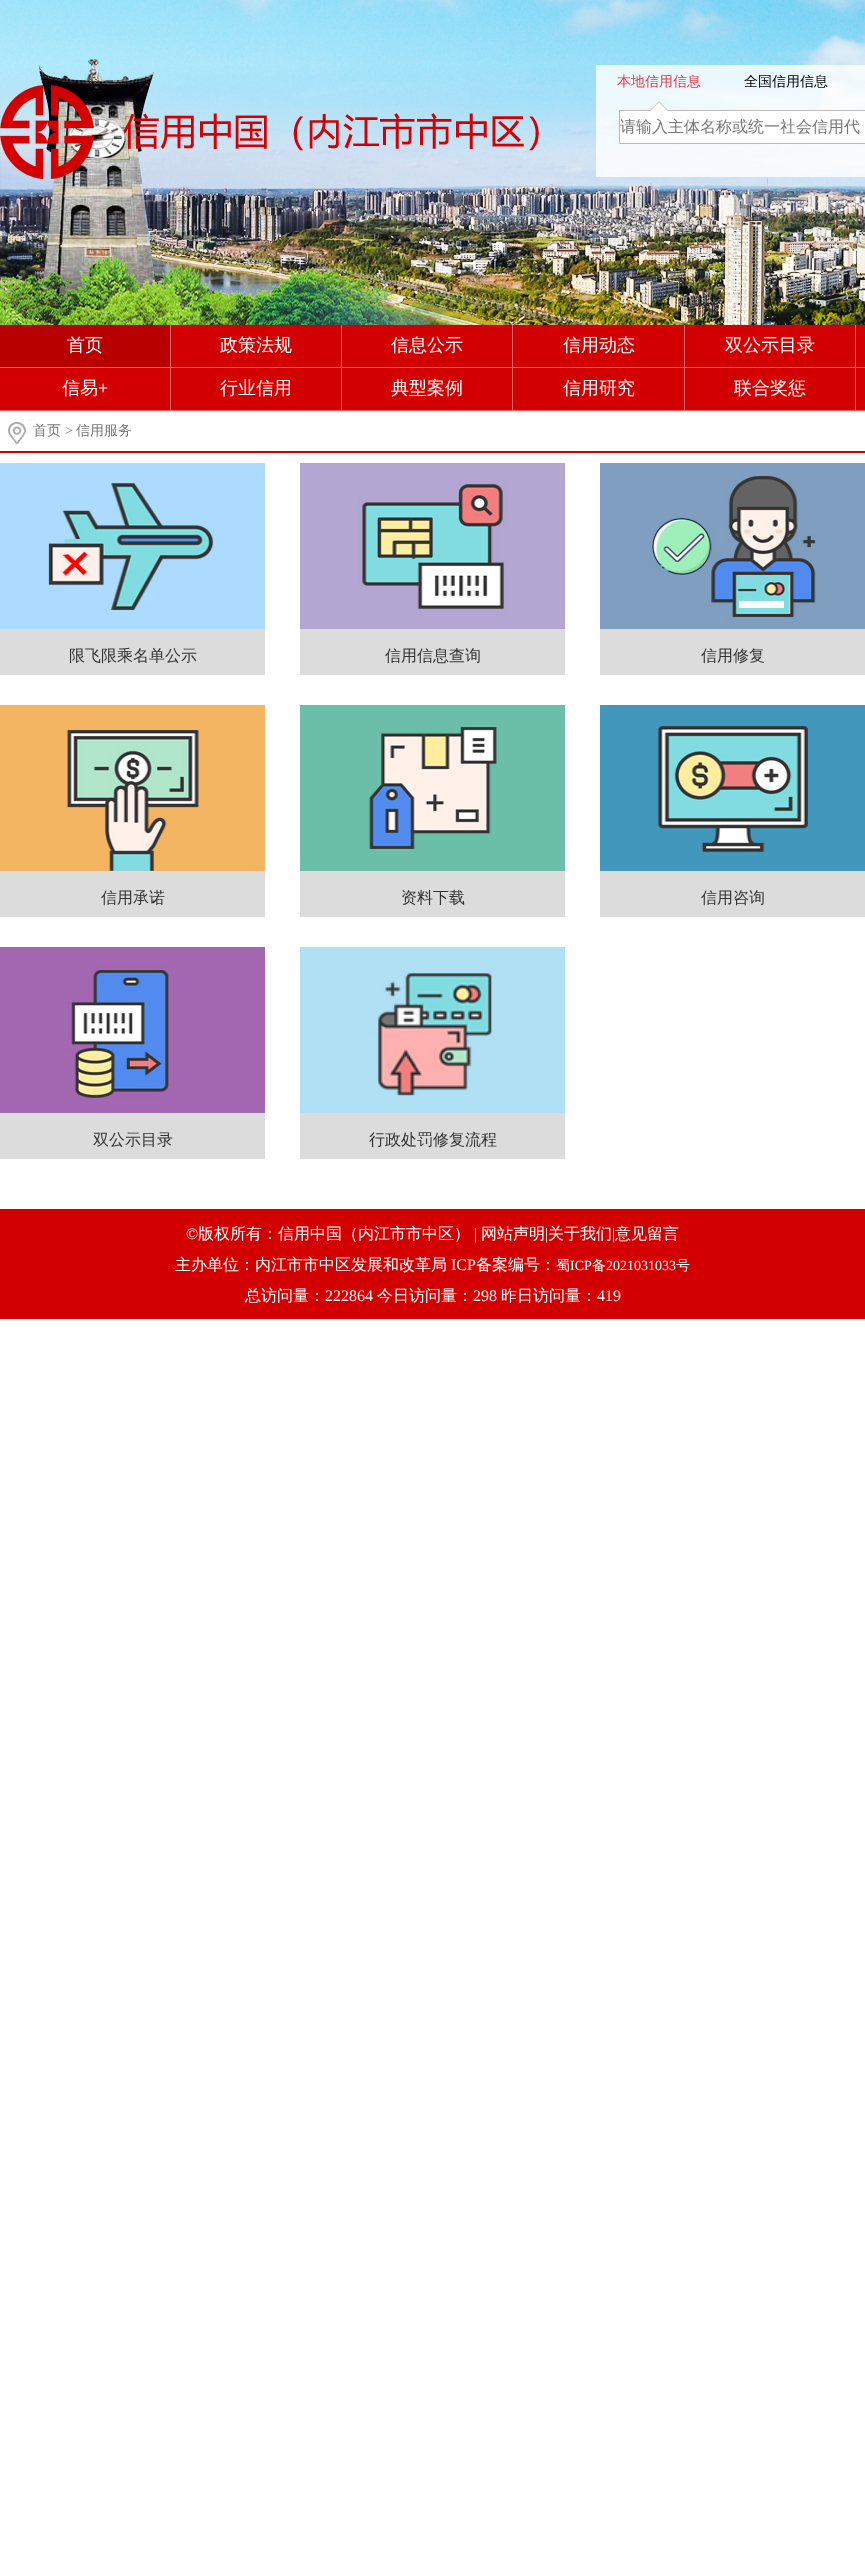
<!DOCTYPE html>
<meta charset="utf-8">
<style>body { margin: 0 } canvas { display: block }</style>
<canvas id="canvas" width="865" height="2560"></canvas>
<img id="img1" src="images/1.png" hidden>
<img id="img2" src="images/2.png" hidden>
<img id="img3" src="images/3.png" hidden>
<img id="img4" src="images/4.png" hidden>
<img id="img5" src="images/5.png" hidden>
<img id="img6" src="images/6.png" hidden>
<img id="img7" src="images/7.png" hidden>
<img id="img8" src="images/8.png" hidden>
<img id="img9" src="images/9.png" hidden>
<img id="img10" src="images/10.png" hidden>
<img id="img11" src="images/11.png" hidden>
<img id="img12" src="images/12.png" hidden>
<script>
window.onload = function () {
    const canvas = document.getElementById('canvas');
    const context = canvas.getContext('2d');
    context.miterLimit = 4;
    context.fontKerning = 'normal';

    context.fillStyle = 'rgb(255, 255, 255)';
    context.fillRect(0, 0, 865, 2560);
    context.drawImage(document.getElementById('img1'), 0, 0, 865, 325);
    context.drawImage(document.getElementById('img2'), 0, 85, 539, 94);
    context.fillStyle = 'rgba(255, 255, 255, 0.8)';
    context.fillRect(596, 65, 269, 112);
    context.fillStyle = 'rgb(255, 255, 255)';
    context.beginPath();
    context.rect(619.5, 110.5, 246, 33);
    context.fill();
    context.strokeStyle = 'rgb(187, 187, 187)';
    context.stroke();
    context.drawImage(document.getElementById('img3'), 650, 101, 18, 10);
    context.fillStyle = 'rgb(210, 0, 0)';
    context.fillRect(0, 325, 865, 85);
    context.fillStyle = 'rgb(184, 0, 0)';
    context.fillRect(0, 325, 170, 42);
    context.fillStyle = 'rgb(230, 102, 101)';
    context.fillRect(170, 325, 1, 86);
    context.fillRect(0, 367, 171, 1);
    context.fillRect(341, 325, 1, 86);
    context.fillRect(171, 367, 171, 1);
    context.fillRect(512, 325, 1, 86);
    context.fillRect(342, 367, 171, 1);
    context.fillRect(684, 325, 1, 86);
    context.fillRect(513, 367, 172, 1);
    context.fillRect(855, 325, 1, 86);
    context.fillRect(685, 367, 180, 1);
    context.fillRect(0, 410, 865, 1);
    context.drawImage(document.getElementById('img4'), 8, 419, 24, 30);
    context.fillStyle = 'rgb(210, 0, 0)';
    context.fillRect(0, 451, 865, 2);
    context.fillStyle = 'rgb(220, 220, 220)';
    context.fillRect(0, 629, 265, 46);
    context.drawImage(document.getElementById('img5'), 0, 463, 265, 166);
    context.fillRect(300, 629, 265, 46);
    context.drawImage(document.getElementById('img6'), 300, 463, 265, 166);
    context.fillRect(600, 629, 265, 46);
    context.drawImage(document.getElementById('img7'), 600, 463, 265, 166);
    context.fillRect(0, 871, 265, 46);
    context.drawImage(document.getElementById('img8'), 0, 705, 265, 166);
    context.fillRect(300, 871, 265, 46);
    context.drawImage(document.getElementById('img9'), 300, 705, 265, 166);
    context.fillRect(600, 871, 265, 46);
    context.drawImage(document.getElementById('img10'), 600, 705, 265, 166);
    context.fillRect(0, 1113, 265, 46);
    context.drawImage(document.getElementById('img11'), 0, 947, 265, 166);
    context.fillRect(300, 1113, 265, 46);
    context.drawImage(document.getElementById('img12'), 300, 947, 265, 166);
    context.fillStyle = 'rgb(210, 0, 0)';
    context.fillRect(0, 1209, 865, 110);
    context.font = '500 14px WenQuanYi Zen Hei';
    context.fillStyle = 'rgb(225, 60, 67)';
    context.fillText('本地信用信息', 617, 86);
    context.fillStyle = 'rgb(0, 0, 0)';
    context.fillText('全国信用信息', 744, 86);
    context.font = '500 16px WenQuanYi Zen Hei';
    context.fillStyle = 'rgb(120, 120, 120)';
    context.fillText('请输入主体名称或统一社会信用代', 620, 132);
    context.font = '500 18px WenQuanYi Zen Hei';
    context.fillStyle = 'rgb(255, 255, 255)';
    context.fillText('首页', 67, 351);
    context.fillText('政策法规', 220, 351);
    context.fillText('信息公示', 391, 351);
    context.fillText('信用动态', 563, 351);
    context.fillText('双公示目录', 725, 351);
    context.fillText('信易', 62, 394);
    context.font = '18px Liberation Serif';
    context.fillText('+', 98, 394);
    context.font = '500 18px WenQuanYi Zen Hei';
    context.fillText('行业信用', 220, 394);
    context.fillText('典型案例', 391, 394);
    context.fillText('信用研究', 563, 394);
    context.fillText('联合奖惩', 734, 394);
    context.font = '500 14px WenQuanYi Zen Hei';
    context.fillStyle = 'rgb(120, 120, 120)';
    context.fillText('首页', 33, 435);
    context.font = '14px Liberation Serif';
    context.fillText('>', 65, 435);
    context.font = '500 14px WenQuanYi Zen Hei';
    context.fillText('信用服务', 76, 435);
    context.font = '500 16px WenQuanYi Zen Hei';
    context.fillStyle = 'rgb(51, 51, 51)';
    context.fillText('限飞限乘名单公示', 69, 661);
    context.fillText('信用信息查询', 385, 661);
    context.fillText('信用修复', 701, 661);
    context.fillText('信用承诺', 101, 903);
    context.fillText('资料下载', 401, 903);
    context.fillText('信用咨询', 701, 903);
    context.fillText('双公示目录', 93, 1145);
    context.fillText('行政处罚修复流程', 369, 1145);
    context.font = '16px Liberation Serif';
    context.fillStyle = 'rgb(255, 255, 255)';
    context.fillText('©', 186, 1239);
    context.font = '500 16px WenQuanYi Zen Hei';
    context.fillText('版权所有：信用中国（内江市市中区）', 198, 1239);
    context.font = '16px Liberation Serif';
    context.fillText('|', 474, 1239);
    context.font = '500 16px WenQuanYi Zen Hei';
    context.fillText('网站声明', 481, 1239);
    context.font = '16px Liberation Serif';
    context.fillText('|', 545, 1239);
    context.font = '500 16px WenQuanYi Zen Hei';
    context.fillText('关于我们', 548, 1239);
    context.font = '16px Liberation Serif';
    context.fillText('|', 612, 1239);
    context.font = '500 16px WenQuanYi Zen Hei';
    context.fillText('意见留言', 615, 1239);
    context.fillText('主办单位：内江市市中区发展和改革局', 175, 1270);
    context.font = '16px Liberation Serif';
    context.fillText('ICP', 451, 1270);
    context.font = '500 16px WenQuanYi Zen Hei';
    context.fillText('备案编号：', 476, 1270);
    context.font = '500 14px WenQuanYi Zen Hei';
    context.fillText('蜀', 556, 1270);
    context.font = '14px Liberation Serif';
    context.fillText('ICP', 570, 1270);
    context.font = '500 14px WenQuanYi Zen Hei';
    context.fillText('备', 592, 1270);
    context.font = '14px Liberation Serif';
    context.fillText('2021031033', 606, 1270);
    context.font = '500 14px WenQuanYi Zen Hei';
    context.fillText('号', 676, 1270);
    context.font = '500 16px WenQuanYi Zen Hei';
    context.fillText('总访问量：', 245, 1301);
    context.font = '16px Liberation Serif';
    context.fillText('222864', 325, 1301);
    context.font = '500 16px WenQuanYi Zen Hei';
    context.fillText('今日访问量：', 377, 1301);
    context.font = '16px Liberation Serif';
    context.fillText('298', 473, 1301);
    context.font = '500 16px WenQuanYi Zen Hei';
    context.fillText('昨日访问量：', 501, 1301);
    context.font = '16px Liberation Serif';
    context.fillText('419', 597, 1301);
};
</script>
